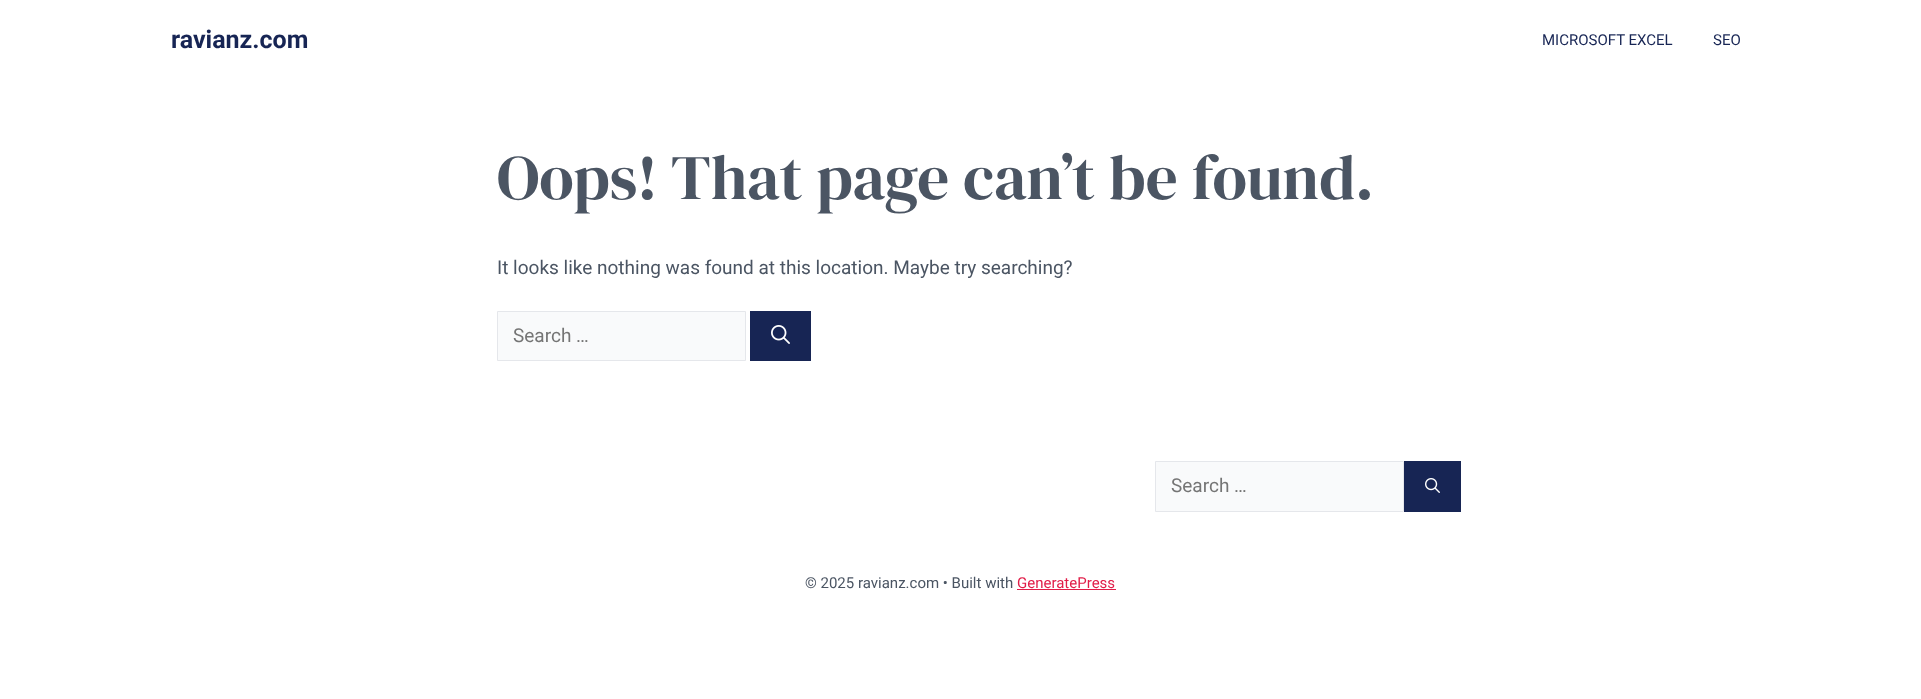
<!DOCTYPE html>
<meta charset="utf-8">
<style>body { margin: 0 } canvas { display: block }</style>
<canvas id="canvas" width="1921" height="699"></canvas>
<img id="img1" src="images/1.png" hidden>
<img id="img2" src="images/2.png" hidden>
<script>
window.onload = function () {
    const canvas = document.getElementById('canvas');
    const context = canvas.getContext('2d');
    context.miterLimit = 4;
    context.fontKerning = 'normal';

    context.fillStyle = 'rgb(255, 255, 255)';
    context.fillRect(0, 0, 1921, 699);
    context.fillStyle = 'rgb(249, 250, 251)';
    context.beginPath();
    context.rect(497.5, 311.5, 248, 49);
    context.fill();
    context.strokeStyle = 'rgb(229, 231, 235)';
    context.stroke();
    context.fillStyle = 'rgb(23, 37, 84)';
    context.fillRect(750, 311, 61, 50);
    context.drawImage(document.getElementById('img1'), 771, 325, 19, 19);
    context.fillStyle = 'rgb(249, 250, 251)';
    context.beginPath();
    context.rect(1155.5, 461.5, 248, 50);
    context.fill();
    context.stroke();
    context.fillStyle = 'rgb(23, 37, 84)';
    context.fillRect(1404, 461, 57, 51);
    context.drawImage(document.getElementById('img2'), 1425, 478, 15, 15);
    context.fillStyle = 'rgb(225, 29, 72)';
    context.fillRect(1017, 589, 99, 1);
    context.font = 'bold 25px Roboto';
    context.fillStyle = 'rgb(23, 37, 84)';
    context.fillText('ravianz.com', 171, 48);
    context.font = '15px Roboto';
    context.fillText('MICROSOFT EXCEL', 1542, 45);
    context.fillText('SEO', 1713, 45);
    context.font = '63.2px DM Serif Display';
    context.fillStyle = 'rgb(75, 85, 99)';
    context.fillText('Oops! That page can’t be found.', 497, 199);
    context.font = '19px Roboto';
    context.fillText('It looks like nothing was found at this location. Maybe try searching?', 497, 274);
    context.fillStyle = 'rgb(117, 117, 117)';
    context.fillText('Search …', 513, 342);
    context.fillText('Search …', 1171, 492);
    context.font = '15px Roboto';
    context.fillStyle = 'rgb(75, 85, 99)';
    context.fillText('© 2025 ravianz.com • Built with', 805, 588);
    context.fillStyle = 'rgb(225, 29, 72)';
    context.fillText('GeneratePress', 1017, 588);
};
</script>
